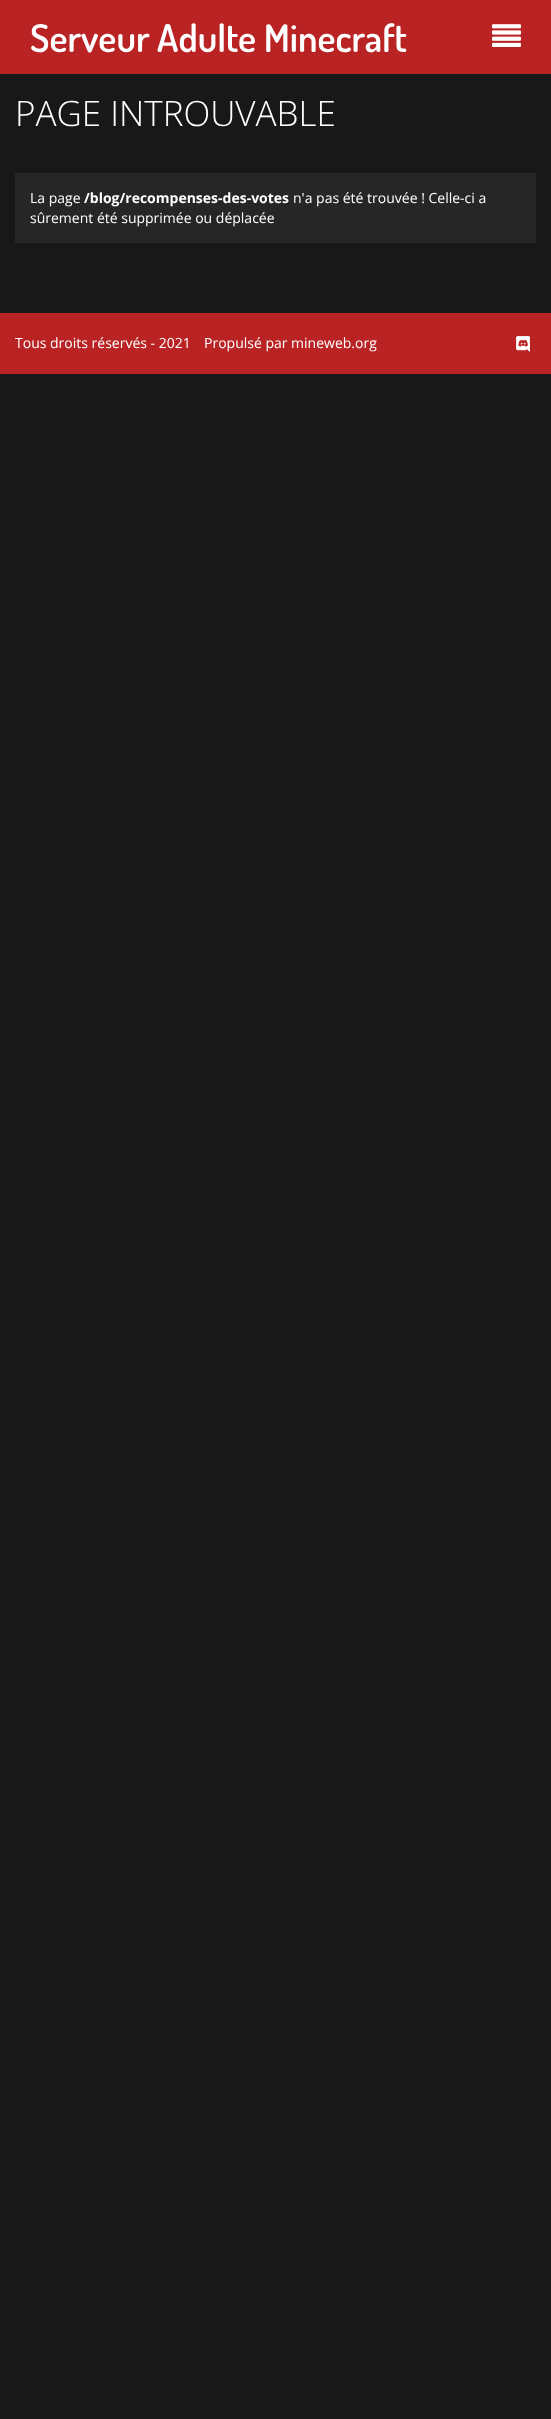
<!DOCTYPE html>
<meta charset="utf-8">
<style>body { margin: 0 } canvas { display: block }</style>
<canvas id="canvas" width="551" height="2419"></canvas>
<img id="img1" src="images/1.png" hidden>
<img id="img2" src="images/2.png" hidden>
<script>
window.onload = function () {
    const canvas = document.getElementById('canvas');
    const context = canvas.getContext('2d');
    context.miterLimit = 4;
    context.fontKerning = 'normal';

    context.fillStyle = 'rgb(24, 24, 24)';
    context.fillRect(0, 0, 551, 2419);
    context.fillStyle = 'rgb(186, 35, 35)';
    context.fillRect(0, 0, 551, 74);
    context.drawImage(document.getElementById('img1'), 492, 24, 29, 23);
    context.fillStyle = 'rgb(38, 38, 38)';
    context.fillRect(15, 173, 521, 70);
    context.fillStyle = 'rgb(186, 35, 35)';
    context.fillRect(0, 313, 551, 61);
    context.drawImage(document.getElementById('img2'), 516, 336, 14, 16);
    context.font = '600 38px Dosis';
    context.fillStyle = 'rgb(255, 255, 255)';
    context.fillText('Serveur Adulte Minecraft', 30, 52);
    context.font = '300 35px Open Sans';
    context.fillText('PAGE INTROUVABLE', 15, 126);
    context.font = '14px Open Sans';
    context.fillText('La page', 30, 203);
    context.font = 'bold 14px Open Sans';
    context.fillText('/blog/recompenses-des-votes', 84, 203);
    context.font = '14px Open Sans';
    context.fillText('n\'a pas été trouvée ! Celle-ci a', 293, 203);
    context.fillText('sûrement été supprimée ou déplacée', 30, 223);
    context.fillText('Tous droits réservés - 2021', 15, 348);
    context.fillText('Propulsé par mineweb.org', 204, 348);
};
</script>
